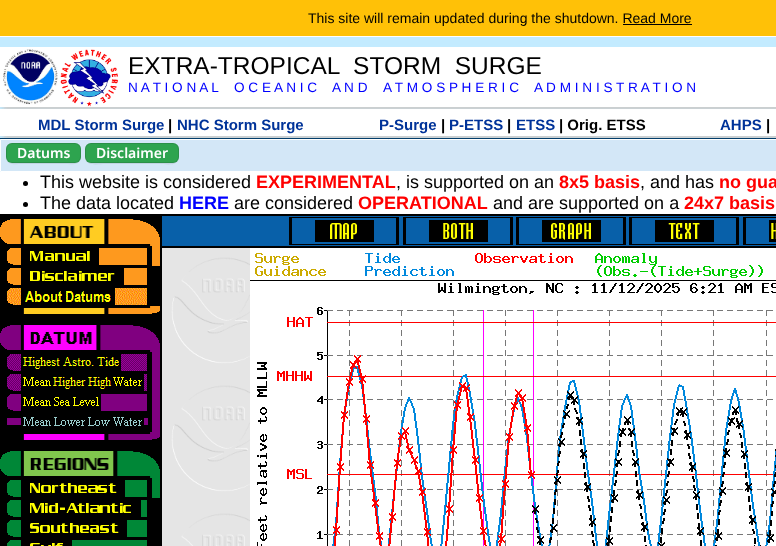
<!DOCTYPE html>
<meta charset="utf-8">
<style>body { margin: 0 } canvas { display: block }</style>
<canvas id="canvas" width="776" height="546"></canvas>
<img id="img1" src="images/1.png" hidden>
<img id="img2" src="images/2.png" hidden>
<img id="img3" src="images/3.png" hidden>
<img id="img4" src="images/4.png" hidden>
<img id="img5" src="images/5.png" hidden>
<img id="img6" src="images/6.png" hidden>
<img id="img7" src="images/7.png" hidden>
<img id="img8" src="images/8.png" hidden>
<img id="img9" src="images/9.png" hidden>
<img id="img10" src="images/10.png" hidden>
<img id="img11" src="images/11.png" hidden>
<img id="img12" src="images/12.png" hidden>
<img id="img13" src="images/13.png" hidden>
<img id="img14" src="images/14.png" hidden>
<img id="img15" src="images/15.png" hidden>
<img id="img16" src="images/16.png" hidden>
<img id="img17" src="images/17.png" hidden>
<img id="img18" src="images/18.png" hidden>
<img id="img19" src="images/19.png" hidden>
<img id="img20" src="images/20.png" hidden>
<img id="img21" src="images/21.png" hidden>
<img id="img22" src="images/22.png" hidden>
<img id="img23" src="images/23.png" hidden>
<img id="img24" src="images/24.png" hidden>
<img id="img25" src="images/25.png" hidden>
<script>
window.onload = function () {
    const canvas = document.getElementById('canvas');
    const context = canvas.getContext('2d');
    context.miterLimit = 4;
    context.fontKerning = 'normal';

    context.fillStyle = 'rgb(195, 235, 255)';
    context.fillRect(0, 0, 776, 546);
    context.fillStyle = 'rgb(255, 193, 7)';
    context.fillRect(0, 0, 776, 36);
    context.fillStyle = 'rgb(255, 255, 255)';
    context.fillRect(0, 36, 776, 1);
    context.fillStyle = 'rgb(0, 0, 0)';
    context.fillRect(623, 24, 69, 1);
    context.fillStyle = 'rgb(204, 204, 204)';
    context.filter = 'blur(2.5px)';
    context.beginPath();
    context.rect(3, 57, 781, 54);
    context.fill();
    context.filter = 'none';
    context.fillStyle = 'rgb(255, 255, 255)';
    context.fillRect(0, 47, 776, 60);
    context.drawImage(document.getElementById('img1'), 3, 49, 55, 56);
    context.drawImage(document.getElementById('img2'), 60, 49, 58, 58);
    context.fillStyle = 'rgb(204, 204, 204)';
    context.filter = 'blur(2.5px)';
    context.beginPath();
    context.rect(3, 119, 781, 21);
    context.fill();
    context.filter = 'none';
    context.fillStyle = 'rgb(255, 255, 255)';
    context.fillRect(0, 109, 776, 27);
    context.fillStyle = 'rgb(3, 62, 107)';
    context.fillRect(0, 138, 776, 1);
    context.fillStyle = 'rgb(211, 231, 247)';
    context.beginPath();
    context.rect(0.5, 139.5, 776, 32);
    context.fill();
    context.strokeStyle = 'rgb(255, 255, 255)';
    context.stroke();
    context.fillStyle = 'rgb(193, 211, 226)';
    context.beginPath();
    context.moveTo(6, 157);
    context.bezierCurveTo(6, 166, 16, 164, 22, 164);
    context.lineTo(64, 164);
    context.bezierCurveTo(71, 164, 81, 166, 81, 157);
    context.bezierCurveTo(81, 160, 78, 163, 75, 163);
    context.lineTo(12, 163);
    context.bezierCurveTo(9, 163, 6, 160, 6, 157);
    context.closePath();
    context.fill();
    context.fillStyle = 'rgb(46, 164, 79)';
    context.beginPath();
    context.roundRect(6, 143, 75, 20, 6);
    context.fill();
    context.beginPath();
    context.roundRect(6.5, 143.5, 74, 19, 5.5);
    context.strokeStyle = 'rgba(27, 31, 35, 0.15)';
    context.stroke();
    context.fillStyle = 'rgb(193, 211, 226)';
    context.beginPath();
    context.moveTo(85, 157);
    context.bezierCurveTo(85, 167, 98, 164, 105, 164);
    context.lineTo(159, 164);
    context.bezierCurveTo(166, 164, 179, 167, 179, 157);
    context.bezierCurveTo(179, 160, 176, 163, 173, 163);
    context.lineTo(91, 163);
    context.bezierCurveTo(88, 163, 85, 160, 85, 157);
    context.closePath();
    context.fill();
    context.fillStyle = 'rgb(46, 164, 79)';
    context.beginPath();
    context.roundRect(85, 143, 94, 20, 6);
    context.fill();
    context.beginPath();
    context.roundRect(85.5, 143.5, 93, 19, 5.5);
    context.stroke();
    context.fillStyle = 'rgb(255, 255, 255)';
    context.fillRect(0, 172, 776, 42);
    context.fillStyle = 'rgb(0, 0, 0)';
    context.beginPath();
    context.arc(25.5, 183.5, 2.5, 0, 2 * Math.PI);
    context.fill();
    context.beginPath();
    context.arc(25.5, 204.5, 2.5, 0, 2 * Math.PI);
    context.fill();
    context.fillRect(0, 214, 160, 5);
    context.drawImage(document.getElementById('img3'), 0, 219, 160, 27);
    context.fillRect(0, 246, 152, 20);
    context.drawImage(document.getElementById('img4'), 7, 248, 140, 17);
    context.fillStyle = 'rgb(254, 153, 30)';
    context.fillRect(152, 246, 8, 20);
    context.fillStyle = 'rgb(0, 0, 0)';
    context.fillRect(0, 266, 160, 59);
    context.drawImage(document.getElementById('img5'), 7, 268, 140, 17);
    context.drawImage(document.getElementById('img6'), 7, 288, 140, 17);
    context.drawImage(document.getElementById('img7'), 23, 306, 137, 8);
    context.drawImage(document.getElementById('img8'), 0, 325, 160, 27);
    context.fillRect(0, 352, 152, 80);
    context.drawImage(document.getElementById('img9'), 7, 354, 140, 17);
    context.fillStyle = 'rgb(128, 0, 128)';
    context.fillRect(152, 352, 8, 80);
    context.drawImage(document.getElementById('img10'), 7, 374, 140, 17);
    context.drawImage(document.getElementById('img11'), 7, 394, 140, 17);
    context.drawImage(document.getElementById('img12'), 7, 417, 141, 9);
    context.fillStyle = 'rgb(0, 0, 0)';
    context.fillRect(0, 432, 160, 19);
    context.drawImage(document.getElementById('img13'), 23, 432, 137, 8);
    context.drawImage(document.getElementById('img14'), 0, 451, 160, 27);
    context.fillRect(0, 478, 152, 20);
    context.drawImage(document.getElementById('img15'), 7, 480, 140, 17);
    context.fillStyle = 'rgb(0, 135, 55)';
    context.fillRect(152, 478, 8, 20);
    context.fillStyle = 'rgb(0, 0, 0)';
    context.fillRect(0, 498, 160, 48);
    context.drawImage(document.getElementById('img16'), 7, 500, 140, 17);
    context.drawImage(document.getElementById('img17'), 7, 520, 140, 17);
    context.drawImage(document.getElementById('img18'), 7, 540, 140, 6);
    context.fillRect(160, 214, 616, 332);
    context.fillStyle = 'rgb(8, 96, 169)';
    context.fillRect(162, 216, 614, 30);
    context.drawImage(document.getElementById('img19'), 289, 217, 110, 28);
    context.drawImage(document.getElementById('img20'), 403, 217, 110, 28);
    context.drawImage(document.getElementById('img21'), 516, 217, 110, 28);
    context.drawImage(document.getElementById('img22'), 629, 217, 110, 28);
    context.drawImage(document.getElementById('img23'), 743, 217, 33, 28);
    context.drawImage(document.getElementById('img24'), 162, 248, 88, 298);
    context.drawImage(document.getElementById('img25'), 250, 248, 526, 298);
    context.font = '14px Liberation Sans';
    context.fillStyle = 'rgb(0, 0, 0)';
    context.fillText('This site will remain updated during the shutdown. Read More', 308, 23);
    context.font = '24.5px Liberation Sans';
    context.fillText('EXTRA-TROPICAL  STORM  SURGE', 128, 74);
    context.font = '13.6px Liberation Sans';
    context.fillStyle = 'rgb(0, 0, 255)';
    context.fillText('N A T I O N A L', 128, 92);
    context.fillText('O C E A N I C', 234, 92);
    context.fillText('A N D', 332, 92);
    context.fillText('A T M O S P H E R I C', 383, 92);
    context.fillText('A D M I N I S T R A T I O N', 534, 92);
    context.font = 'bold 15px Liberation Sans';
    context.fillStyle = 'rgb(0, 51, 153)';
    context.fillText('MDL Storm Surge', 38, 130);
    context.fillStyle = 'rgb(0, 0, 0)';
    context.fillText('|', 168, 130);
    context.fillStyle = 'rgb(0, 51, 153)';
    context.fillText('NHC Storm Surge', 177, 130);
    context.fillText('P-Surge', 379, 130);
    context.fillStyle = 'rgb(0, 0, 0)';
    context.fillText('|', 441, 130);
    context.fillStyle = 'rgb(0, 51, 153)';
    context.fillText('P-ETSS', 449, 130);
    context.fillStyle = 'rgb(0, 0, 0)';
    context.fillText('|', 507, 130);
    context.fillStyle = 'rgb(0, 51, 153)';
    context.fillText('ETSS', 516, 130);
    context.fillStyle = 'rgb(0, 0, 0)';
    context.fillText('| Orig. ETSS', 559, 130);
    context.fillStyle = 'rgb(0, 51, 153)';
    context.fillText('AHPS', 720, 130);
    context.fillStyle = 'rgb(0, 0, 0)';
    context.fillText('|', 766, 130);
    context.font = '600 14px Noto Sans';
    context.fillStyle = 'rgb(255, 255, 255)';
    context.fillText('Datums', 17, 158);
    context.fillText('Disclaimer', 96, 158);
    context.font = '18px Liberation Sans';
    context.fillStyle = 'rgb(0, 0, 0)';
    context.fillText('This website is considered', 40, 188);
    context.font = 'bold 18px Liberation Sans';
    context.fillStyle = 'rgb(255, 0, 0)';
    context.fillText('EXPERIMENTAL', 256, 188);
    context.font = '18px Liberation Sans';
    context.fillStyle = 'rgb(0, 0, 0)';
    context.fillText(', is supported on an', 396, 188);
    context.font = 'bold 18px Liberation Sans';
    context.fillStyle = 'rgb(255, 0, 0)';
    context.fillText('8x5 basis', 559, 188);
    context.font = '18px Liberation Sans';
    context.fillStyle = 'rgb(0, 0, 0)';
    context.fillText(', and has', 640, 188);
    context.font = 'bold 18px Liberation Sans';
    context.fillStyle = 'rgb(255, 0, 0)';
    context.fillText('no gua', 719, 188);
    context.font = '18px Liberation Sans';
    context.fillStyle = 'rgb(0, 0, 0)';
    context.fillText('The data located', 40, 209);
    context.font = 'bold 18px Liberation Sans';
    context.fillStyle = 'rgb(0, 0, 255)';
    context.fillText('HERE', 179, 209);
    context.font = '18px Liberation Sans';
    context.fillStyle = 'rgb(0, 0, 0)';
    context.fillText('are considered', 234, 209);
    context.font = 'bold 18px Liberation Sans';
    context.fillStyle = 'rgb(255, 0, 0)';
    context.fillText('OPERATIONAL', 358, 209);
    context.font = '18px Liberation Sans';
    context.fillStyle = 'rgb(0, 0, 0)';
    context.fillText('and are supported on a', 493, 209);
    context.font = 'bold 18px Liberation Sans';
    context.fillStyle = 'rgb(255, 0, 0)';
    context.fillText('24x7 basis', 684, 209);
};
</script>
